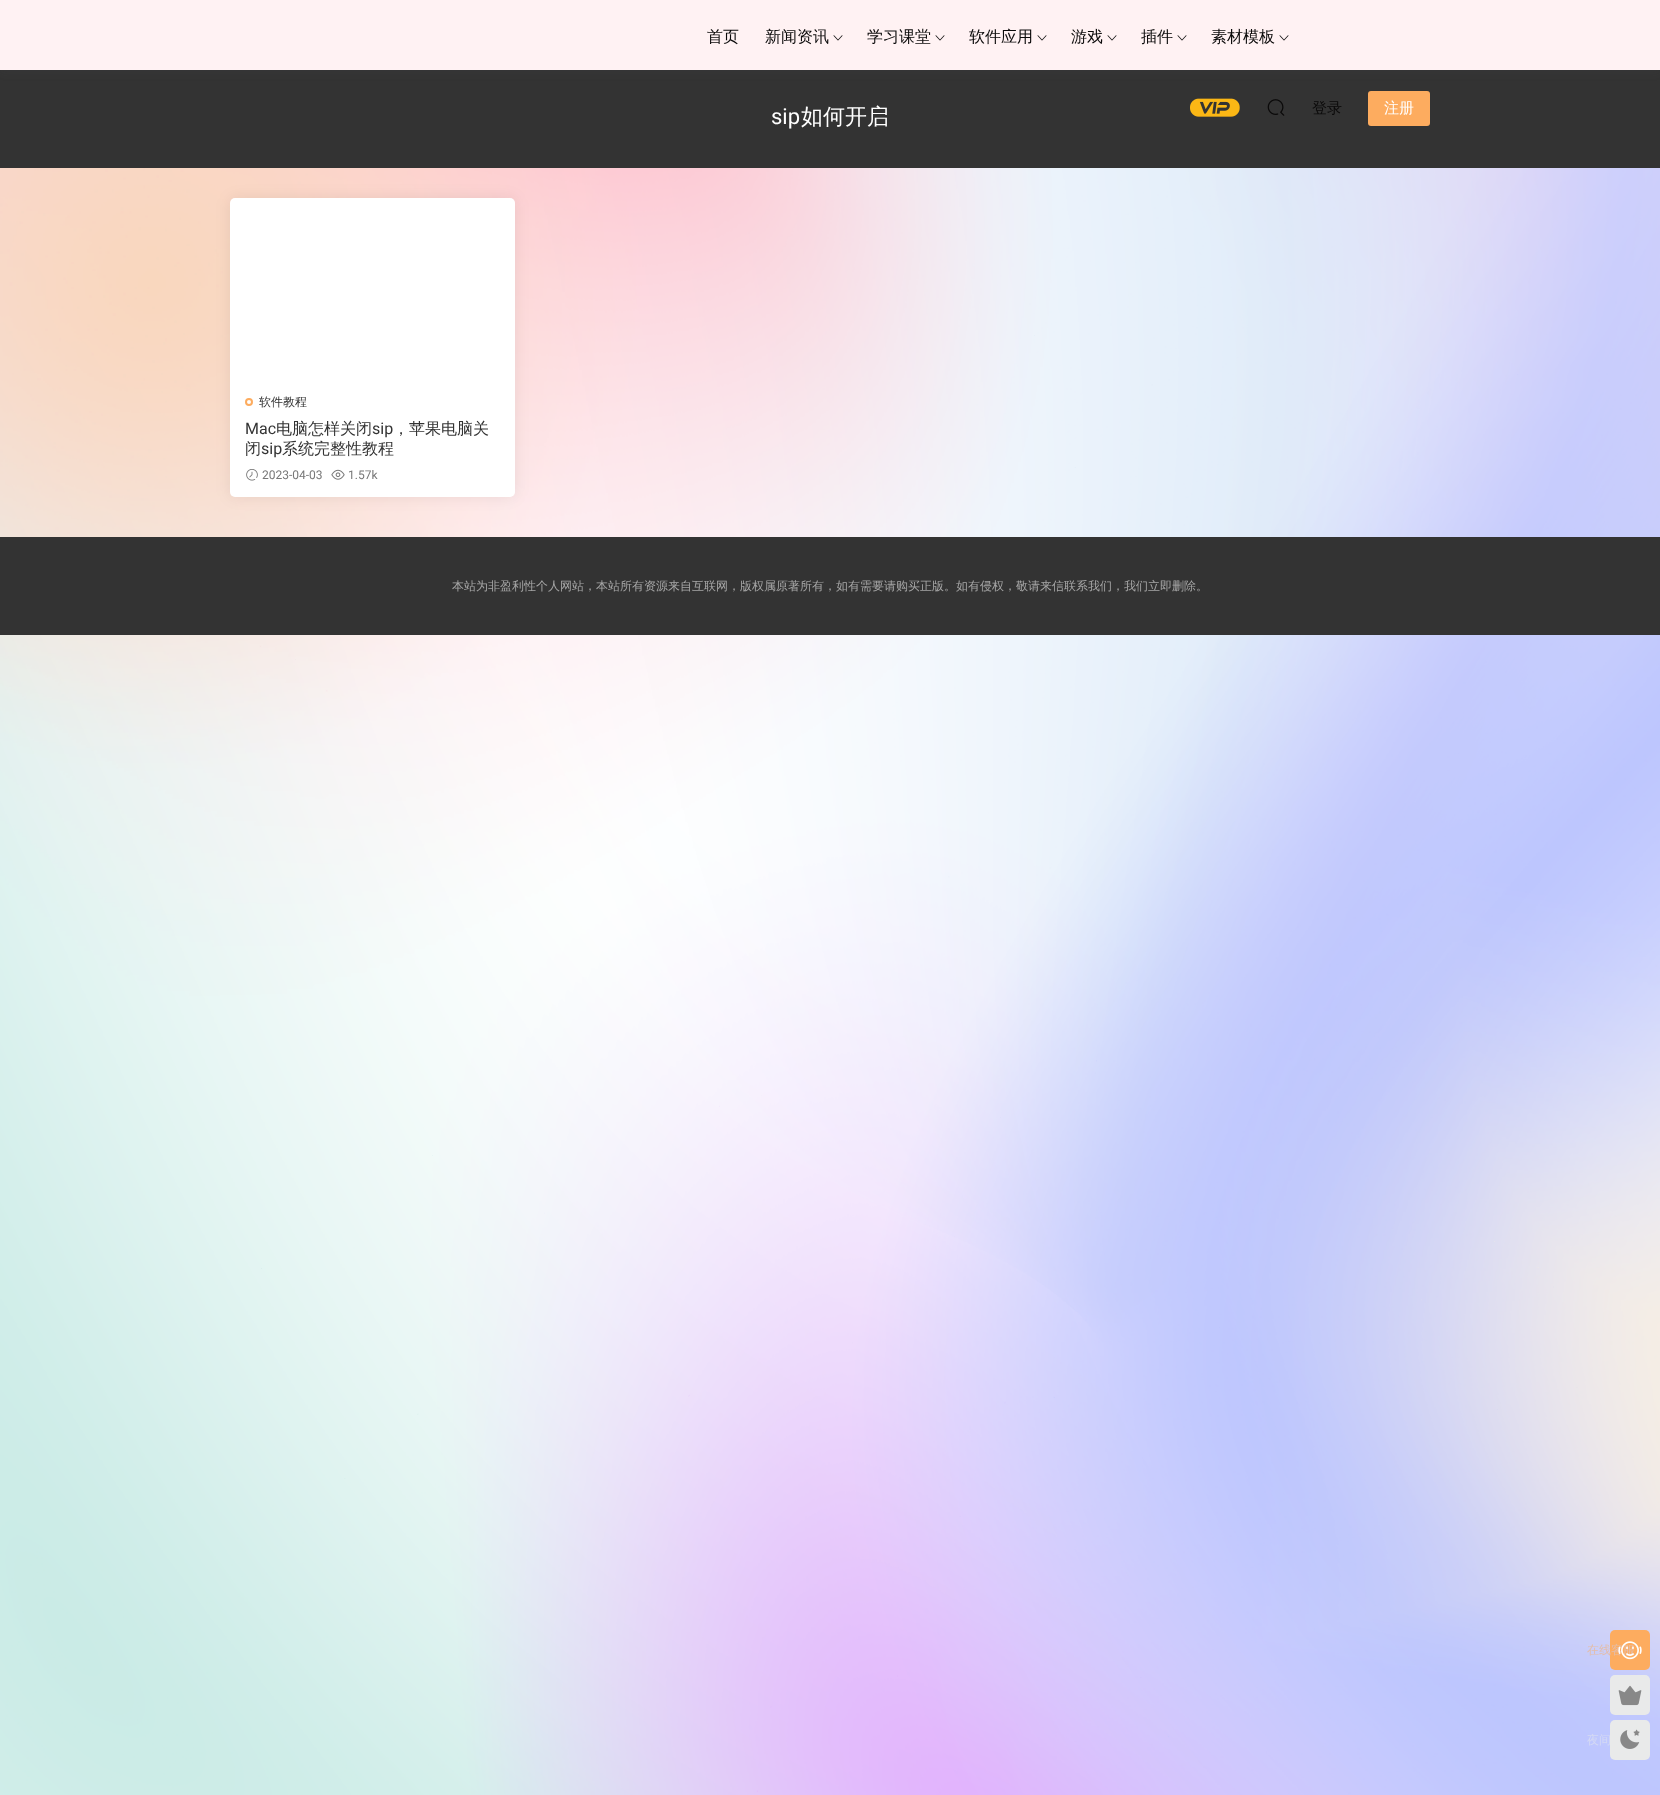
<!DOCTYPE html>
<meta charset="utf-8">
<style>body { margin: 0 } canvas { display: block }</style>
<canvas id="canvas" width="1660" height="1795"></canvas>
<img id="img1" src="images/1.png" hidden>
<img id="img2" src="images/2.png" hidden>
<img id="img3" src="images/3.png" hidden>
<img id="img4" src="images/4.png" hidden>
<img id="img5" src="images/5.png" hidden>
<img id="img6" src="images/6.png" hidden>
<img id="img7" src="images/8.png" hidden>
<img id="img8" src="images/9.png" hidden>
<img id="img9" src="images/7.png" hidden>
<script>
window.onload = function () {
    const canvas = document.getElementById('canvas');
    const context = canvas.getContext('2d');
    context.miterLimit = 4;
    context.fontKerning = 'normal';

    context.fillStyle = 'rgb(255, 255, 255)';
    context.fillRect(0, 0, 1660, 1795);
    context.drawImage(document.getElementById('img1'), 0, 168, 1660, 1627);
    context.fillStyle = 'rgb(51, 51, 51)';
    context.fillRect(0, 70, 1660, 98);
    context.fillStyle = 'rgba(78, 82, 84, 0.1)';
    context.filter = 'blur(5px)';
    context.beginPath();
    context.rect(0, 2, 1660, 70);
    context.fill();
    context.filter = 'none';
    context.fillStyle = 'rgb(255, 242, 243)';
    context.fillRect(0, 0, 1660, 70);
    context.drawImage(document.getElementById('img2'), 833, 35, 10, 6);
    context.drawImage(document.getElementById('img2'), 935, 35, 10, 6);
    context.drawImage(document.getElementById('img2'), 1037, 35, 10, 6);
    context.drawImage(document.getElementById('img2'), 1107, 35, 10, 6);
    context.drawImage(document.getElementById('img2'), 1177, 35, 10, 6);
    context.drawImage(document.getElementById('img2'), 1279, 35, 10, 6);
    context.drawImage(document.getElementById('img3'), 1190, 98, 50, 19);
    context.drawImage(document.getElementById('img4'), 1267, 99, 18, 17);
    context.fillStyle = 'rgb(253, 172, 95)';
    context.beginPath();
    context.roundRect(1368, 91, 62, 35, 3);
    context.fill();
    context.fillStyle = 'rgba(0, 0, 0, 0.07)';
    context.filter = 'blur(7.5px)';
    context.beginPath();
    context.roundRect(230, 198, 285, 299, 5);
    context.fill();
    context.filter = 'none';
    context.fillStyle = 'rgb(255, 255, 255)';
    context.beginPath();
    context.roundRect(230, 198, 285, 299, 5);
    context.fill();
    context.beginPath();
    context.arc(249, 402, 3, 0, 2 * Math.PI);
    context.strokeStyle = 'rgb(253, 172, 95)';
    context.lineWidth = 2;
    context.stroke();
    context.drawImage(document.getElementById('img5'), 246, 469, 12, 12);
    context.drawImage(document.getElementById('img6'), 331, 469, 14, 11);
    context.fillStyle = 'rgb(51, 51, 51)';
    context.fillRect(0, 537, 1660, 98);
    context.fillStyle = 'rgb(253, 172, 95)';
    context.beginPath();
    context.roundRect(1610, 1630, 40, 40, 5);
    context.fill();
    context.fillStyle = 'rgb(233, 234, 234)';
    context.beginPath();
    context.roundRect(1610, 1675, 40, 40, 5);
    context.fill();
    context.drawImage(document.getElementById('img7'), 1618, 1685, 24, 21);
    context.beginPath();
    context.roundRect(1610, 1720, 40, 40, 5);
    context.fill();
    context.drawImage(document.getElementById('img8'), 1620, 1729, 20, 20);
    context.font = '500 16px WenQuanYi Zen Hei';
    context.fillStyle = 'rgb(10, 9, 9)';
    context.fillText('首页', 707, 42);
    context.fillText('新闻资讯', 765, 42);
    context.fillText('学习课堂', 867, 42);
    context.fillText('软件应用', 969, 42);
    context.fillText('游戏', 1071, 42);
    context.fillText('插件', 1141, 42);
    context.fillText('素材模板', 1211, 42);
    context.font = '500 15px WenQuanYi Zen Hei';
    context.fillText('登录', 1312, 113);
    context.fillStyle = 'rgb(255, 255, 255)';
    context.fillText('注册', 1384, 113);
    context.font = '22px Roboto';
    context.fillText('sip', 771, 124);
    context.font = '500 22px WenQuanYi Zen Hei';
    context.fillText('如何开启', 801, 124);
    context.font = '500 12px WenQuanYi Zen Hei';
    context.fillStyle = 'rgb(51, 51, 51)';
    context.fillText('软件教程', 259, 406);
    context.font = '16px Roboto';
    context.fillText('Mac', 245, 434);
    context.font = '500 16px WenQuanYi Zen Hei';
    context.fillText('电脑怎样关闭', 276, 434);
    context.font = '16px Roboto';
    context.fillText('sip', 372, 434);
    context.font = '500 16px WenQuanYi Zen Hei';
    context.fillText('，苹果电脑关', 393, 434);
    context.fillText('闭', 245, 454);
    context.font = '16px Roboto';
    context.fillText('sip', 261, 454);
    context.font = '500 16px WenQuanYi Zen Hei';
    context.fillText('系统完整性教程', 282, 454);
    context.font = '12px Roboto';
    context.fillStyle = 'rgb(119, 119, 119)';
    context.fillText('2023-04-03', 262, 479);
    context.fillText('1.57k', 348, 479);
    context.font = '500 12px WenQuanYi Zen Hei';
    context.fillStyle = 'rgb(167, 167, 167)';
    context.fillText('本站为非盈利性个人网站，本站所有资源来自互联网，版权属原著所有，如有需要请购买正版。如有侵权，敬请来信联系我们，我们立即删除。', 452, 590);
    context.fillStyle = 'rgb(228, 189, 169)';
    context.fillText('在线客服', 1587, 1654);
    context.drawImage(document.getElementById('img9'), 1618, 1641, 24, 19);
    context.fillStyle = 'rgb(212, 217, 244)';
    context.fillText('夜间', 1587, 1744);
};
</script>
